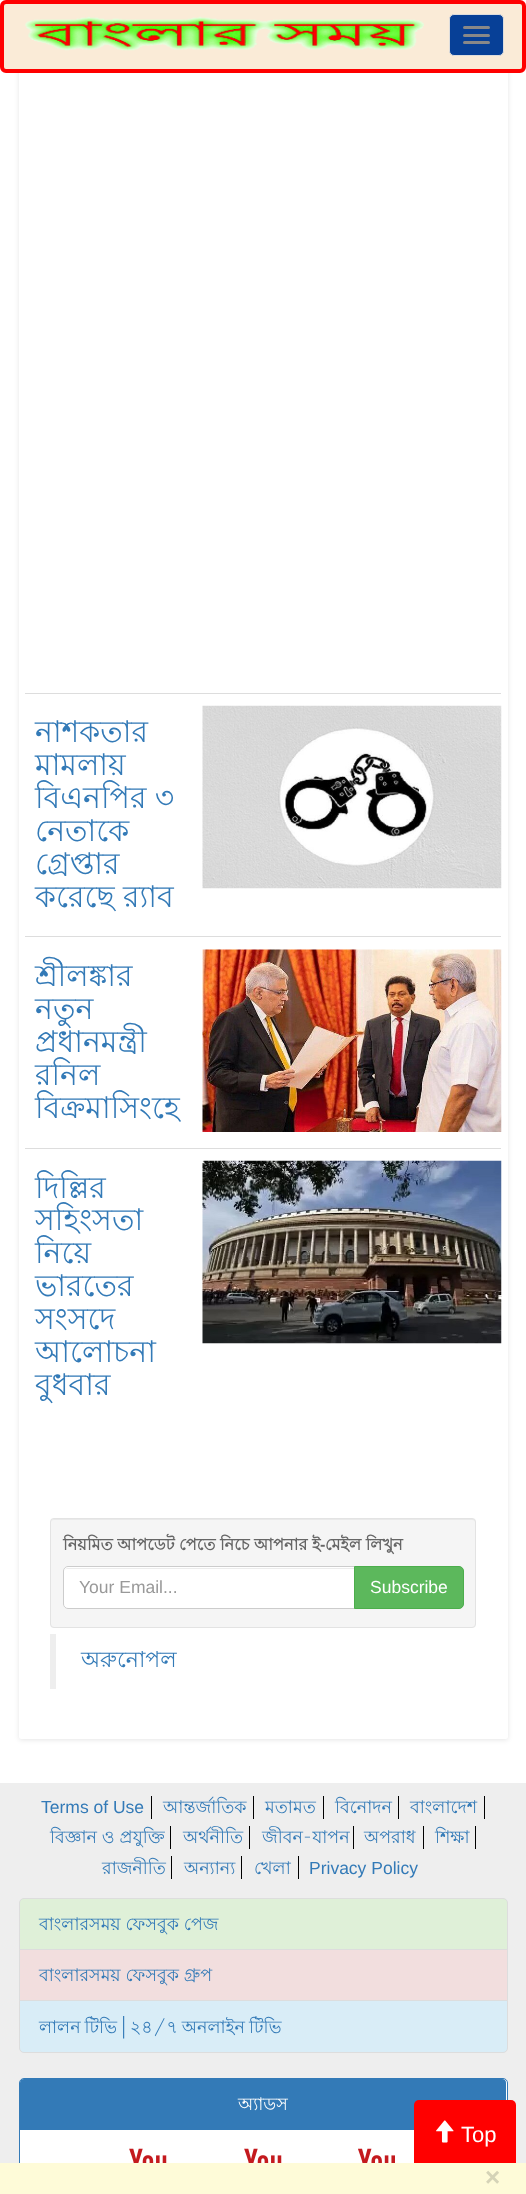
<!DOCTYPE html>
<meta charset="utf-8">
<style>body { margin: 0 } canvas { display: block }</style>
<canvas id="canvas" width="526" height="2194"></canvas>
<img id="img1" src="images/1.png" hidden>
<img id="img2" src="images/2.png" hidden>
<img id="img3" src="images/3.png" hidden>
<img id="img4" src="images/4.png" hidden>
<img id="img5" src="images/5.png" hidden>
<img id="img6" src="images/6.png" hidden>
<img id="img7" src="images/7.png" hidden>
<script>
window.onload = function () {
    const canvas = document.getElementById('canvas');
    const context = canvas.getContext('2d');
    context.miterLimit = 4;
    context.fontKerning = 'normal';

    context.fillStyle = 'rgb(255, 255, 255)';
    context.fillRect(0, 0, 526, 2194);
    context.fillStyle = 'rgba(0, 0, 0, 0.1)';
    context.filter = 'blur(2.5px)';
    context.beginPath();
    context.roundRect(19, 26, 489, 1714, 2.5);
    context.fill();
    context.filter = 'none';
    context.fillStyle = 'rgb(255, 255, 255)';
    context.beginPath();
    context.roundRect(19, 25, 489, 1714, 2.5);
    context.fill();
    context.fillStyle = 'rgb(250, 235, 215)';
    context.beginPath();
    context.roundRect(2, 2, 522, 69, 4);
    context.fill();
    context.strokeStyle = 'rgb(255, 0, 0)';
    context.lineWidth = 4;
    context.stroke();
    context.drawImage(document.getElementById('img1'), 25, 16, 399, 35);
    context.fillStyle = 'rgb(7, 64, 151)';
    context.beginPath();
    context.roundRect(449.5, 14.5, 54, 41, 4.5);
    context.fill();
    context.strokeStyle = 'rgb(221, 221, 221)';
    context.lineWidth = 1;
    context.stroke();
    context.fillStyle = 'rgb(136, 136, 136)';
    context.beginPath();
    context.roundRect(463, 26, 27, 3, 1.5);
    context.fill();
    context.beginPath();
    context.roundRect(463, 34, 27, 3, 1.5);
    context.fill();
    context.beginPath();
    context.roundRect(463, 41, 27, 3, 1.5);
    context.fill();
    context.fillStyle = 'rgb(221, 221, 221)';
    context.fillRect(25, 693, 476, 1);
    context.drawImage(document.getElementById('img2'), 202, 705, 300, 184);
    context.fillRect(25, 936, 476, 1);
    context.drawImage(document.getElementById('img3'), 202, 949, 300, 183);
    context.fillRect(25, 1148, 476, 1);
    context.drawImage(document.getElementById('img4'), 202, 1160, 300, 184);
    context.fillStyle = 'rgb(245, 245, 245)';
    context.beginPath();
    context.roundRect(50, 1518, 426, 110, 4);
    context.fill();
    context.fillStyle = 'rgb(233, 233, 233)';
    context.beginPath();
    context.moveTo(54, 1520);
    context.lineTo(472, 1520);
    context.bezierCurveTo(474, 1520, 475, 1521, 475, 1522);
    context.bezierCurveTo(475, 1520, 474, 1519, 472, 1519);
    context.lineTo(54, 1519);
    context.lineTo(52, 1520);
    context.lineTo(51, 1522);
    context.bezierCurveTo(51, 1521, 52, 1520, 54, 1520);
    context.closePath();
    context.fill();
    context.beginPath();
    context.roundRect(50.5, 1518.5, 425, 109, 3.5);
    context.strokeStyle = 'rgb(227, 227, 227)';
    context.stroke();
    context.fillStyle = 'rgb(255, 255, 255)';
    context.beginPath();
    context.roundRect(63, 1566, 292, 43, [5, 0, 0, 5]);
    context.fill();
    context.fillStyle = 'rgb(236, 236, 236)';
    context.beginPath();
    context.moveTo(68, 1569);
    context.lineTo(354, 1569);
    context.lineTo(354, 1568);
    context.lineTo(68, 1568);
    context.bezierCurveTo(66, 1568, 65, 1569, 64, 1570);
    context.bezierCurveTo(65, 1569, 66, 1569, 68, 1569);
    context.closePath();
    context.fill();
    context.beginPath();
    context.roundRect(63.5, 1566.5, 291, 42, [4.5, 0, 0, 4.5]);
    context.strokeStyle = 'rgb(204, 204, 204)';
    context.stroke();
    context.fillStyle = 'rgb(92, 184, 92)';
    context.beginPath();
    context.roundRect(354.5, 1566.5, 109, 42, [0, 4.5, 4.5, 0]);
    context.fill();
    context.strokeStyle = 'rgb(76, 174, 76)';
    context.stroke();
    context.fillStyle = 'rgb(238, 238, 238)';
    context.fillRect(50, 1634, 6, 55);
    context.fillRect(0, 1783, 526, 380);
    context.fillStyle = 'rgb(0, 0, 0)';
    context.fillRect(151, 1796, 1, 23);
    context.fillRect(253, 1796, 1, 23);
    context.fillRect(323, 1796, 1, 23);
    context.fillRect(398, 1796, 1, 23);
    context.fillRect(484, 1796, 1, 23);
    context.fillRect(170, 1826, 1, 23);
    context.fillRect(249, 1826, 1, 23);
    context.fillRect(353, 1826, 1, 23);
    context.fillRect(423, 1826, 1, 23);
    context.fillRect(475, 1826, 1, 23);
    context.fillRect(171, 1856, 1, 23);
    context.fillRect(241, 1856, 1, 23);
    context.fillRect(298, 1856, 1, 23);
    context.fillStyle = 'rgb(223, 240, 216)';
    context.beginPath();
    context.roundRect(19.5, 1898.5, 488, 51, [4.5, 4.5, 0, 0]);
    context.fill();
    context.strokeStyle = 'rgb(221, 221, 221)';
    context.stroke();
    context.fillStyle = 'rgb(242, 222, 222)';
    context.beginPath();
    context.rect(19.5, 1949.5, 488, 51);
    context.fill();
    context.stroke();
    context.fillStyle = 'rgb(217, 237, 247)';
    context.beginPath();
    context.roundRect(19.5, 2000.5, 488, 52, [0, 0, 4.5, 4.5]);
    context.fill();
    context.stroke();
    context.fillStyle = 'rgb(255, 255, 255)';
    context.beginPath();
    context.roundRect(19.5, 2078.5, 488, 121, 4.5);
    context.fill();
    context.strokeStyle = 'rgb(51, 122, 183)';
    context.stroke();
    context.fillStyle = 'rgb(51, 122, 183)';
    context.beginPath();
    context.roundRect(20, 2079, 486, 51, [4, 4, 0, 0]);
    context.fill();
    context.drawImage(document.getElementById('img5'), 129, 2148, 38, 15);
    context.drawImage(document.getElementById('img5'), 244, 2148, 38, 15);
    context.drawImage(document.getElementById('img6'), 358, 2148, 37, 15);
    context.fillStyle = 'rgb(255, 0, 0)';
    context.beginPath();
    context.roundRect(414, 2100, 102, 70, 5);
    context.fill();
    context.fillStyle = 'rgb(254, 251, 216)';
    context.fillRect(0, 2163, 526, 31);
    context.drawImage(document.getElementById('img7'), 436, 2120, 18, 23);
    context.font = '30px Lohit Bengali';
    context.fillStyle = 'rgb(51, 122, 183)';
    context.fillText('নাশকতার', 35, 742);
    context.fillText('মামলায়', 35, 775);
    context.fillText('বিএনপির ৩', 35, 808);
    context.fillText('নেতাকে', 35, 841);
    context.fillText('গ্রেপ্তার', 35, 874);
    context.fillText('করেছে র‍্যাব', 35, 907);
    context.fillText('শ্রীলঙ্কার', 35, 986);
    context.fillText('নতুন', 35, 1019);
    context.fillText('প্রধানমন্ত্রী', 35, 1052);
    context.fillText('রনিল', 35, 1085);
    context.fillText('বিক্রমাসিংহে', 35, 1118);
    context.fillText('দিল্লির', 35, 1198);
    context.fillText('সহিংসতা', 35, 1230);
    context.fillText('নিয়ে', 35, 1263);
    context.fillText('ভারতের', 35, 1296);
    context.fillText('সংসদে', 35, 1329);
    context.fillText('আলোচনা', 35, 1362);
    context.save();
    context.beginPath();
    context.rect(25, 693, 476, 818);
    context.clip();
    context.fillText('বুধবার', 35, 1395);
    context.restore();
    context.font = 'bold 16.25px Lohit Bengali';
    context.fillStyle = 'rgb(102, 102, 102)';
    context.fillText('নিয়মিত আপডেট পেতে নিচে আপনার ই', 63, 1550);
    context.font = 'bold 16.25px Liberation Sans';
    context.fillText('-', 320, 1550);
    context.font = 'bold 16.25px Lohit Bengali';
    context.fillText('মেইল লিখুন', 325, 1550);
    context.font = '17.5px Liberation Sans';
    context.fillStyle = 'rgb(153, 153, 153)';
    context.fillText('Your Email...', 79, 1593);
    context.fillStyle = 'rgb(255, 255, 255)';
    context.fillText('Subscribe', 370, 1593);
    context.font = '22px Lohit Bengali';
    context.fillStyle = 'rgb(51, 122, 183)';
    context.fillText('অরুনোপল', 81, 1667);
    context.font = '17.5px Liberation Sans';
    context.fillText('Terms of Use', 41, 1813);
    context.font = '17.5px Lohit Bengali';
    context.fillText('আন্তর্জাতিক', 163, 1813);
    context.fillText('মতামত', 265, 1813);
    context.fillText('বিনোদন', 335, 1813);
    context.fillText('বাংলাদেশ', 410, 1813);
    context.fillText('বিজ্ঞান ও প্রযুক্তি', 50, 1843);
    context.fillText('অর্থনীতি', 183, 1843);
    context.fillText('জীবন-যাপন', 262, 1843);
    context.fillText('অপরাধ', 364, 1843);
    context.fillText('শিক্ষা', 435, 1843);
    context.fillText('রাজনীতি', 102, 1874);
    context.fillText('অন্যান্য', 184, 1874);
    context.fillText('খেলা', 254, 1874);
    context.font = '17.5px Liberation Sans';
    context.fillText('Privacy Policy', 309, 1874);
    context.font = '17.5px Lohit Bengali';
    context.fillText('বাংলারসময় ফেসবুক পেজ', 39, 1930);
    context.fillText('বাংলারসময় ফেসবুক গ্রুপ', 39, 1981);
    context.wordSpacing = '-1px';
    context.fillText('লালন টিভি | ২৪/৭ অনলাইন টিভি', 39, 2033);
    context.wordSpacing = '0px';
    context.fillStyle = 'rgb(255, 255, 255)';
    context.fillText('অ্যাডস', 238, 2110);
    context.font = 'bold 26px Liberation Sans';
    context.fillStyle = 'rgb(213, 211, 183)';
    context.fillText('×', 485, 2186);
    context.font = '22px Liberation Sans';
    context.fillStyle = 'rgb(255, 255, 255)';
    context.fillText('Top', 461, 2142);
};
</script>
